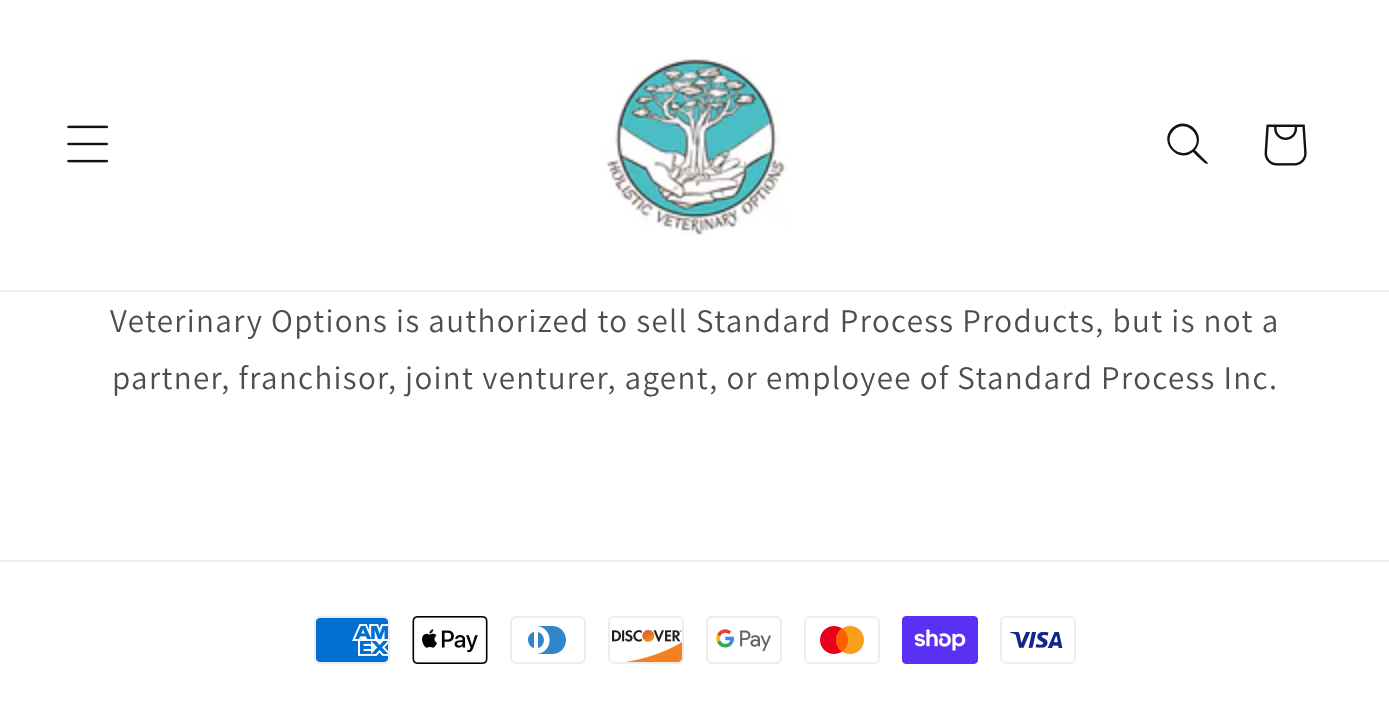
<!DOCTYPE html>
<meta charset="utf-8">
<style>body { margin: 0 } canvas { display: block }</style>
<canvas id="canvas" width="1389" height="716"></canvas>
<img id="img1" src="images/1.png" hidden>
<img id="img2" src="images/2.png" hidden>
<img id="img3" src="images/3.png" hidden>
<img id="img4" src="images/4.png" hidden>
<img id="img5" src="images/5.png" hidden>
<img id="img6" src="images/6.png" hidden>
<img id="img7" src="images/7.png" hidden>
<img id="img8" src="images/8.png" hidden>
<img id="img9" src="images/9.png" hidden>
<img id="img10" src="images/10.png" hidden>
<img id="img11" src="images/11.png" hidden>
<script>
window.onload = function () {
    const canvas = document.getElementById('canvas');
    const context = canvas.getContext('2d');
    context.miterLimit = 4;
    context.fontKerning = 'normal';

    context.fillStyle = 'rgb(255, 255, 255)';
    context.fillRect(0, 0, 1389, 716);
    context.fillStyle = 'rgb(236, 236, 236)';
    context.fillRect(0, 290, 1389, 2);
    context.drawImage(document.getElementById('img1'), 67, 125, 41, 38);
    context.drawImage(document.getElementById('img2'), 605, 55, 184, 180);
    context.fillStyle = 'rgb(18, 18, 18)';
    context.beginPath();
    context.moveTo(1193, 149);
    context.bezierCurveTo(1180, 161, 1161, 143, 1174, 130);
    context.bezierCurveTo(1186, 118, 1205, 137, 1193, 149);
    context.closePath();
    context.moveTo(1193, 152);
    context.bezierCurveTo(1178, 164, 1158, 142, 1172, 128);
    context.bezierCurveTo(1187, 114, 1208, 135, 1195, 150);
    context.lineTo(1208, 163);
    context.lineTo(1207, 164);
    context.bezierCurveTo(1206, 165, 1195, 154, 1193, 152);
    context.closePath();
    context.fill('evenodd');
    context.drawImage(document.getElementById('img3'), 1264, 124, 43, 42);
    context.fillStyle = 'rgb(236, 236, 236)';
    context.fillRect(0, 560, 1389, 2);
    context.drawImage(document.getElementById('img4'), 314, 616, 76, 48);
    context.drawImage(document.getElementById('img5'), 412, 616, 76, 48);
    context.drawImage(document.getElementById('img6'), 510, 616, 76, 48);
    context.drawImage(document.getElementById('img7'), 608, 616, 76, 48);
    context.drawImage(document.getElementById('img8'), 706, 616, 76, 48);
    context.drawImage(document.getElementById('img9'), 804, 616, 76, 48);
    context.drawImage(document.getElementById('img10'), 902, 616, 76, 48);
    context.drawImage(document.getElementById('img11'), 1000, 616, 76, 48);
    context.letterSpacing = '1.32px';
    context.font = '33px Assistant';
    context.fillStyle = 'rgb(77, 77, 77)';
    context.fillText('Veterinary Options is authorized to sell Standard Process Products, but is not a', 110, 332);
    context.fillText('partner, franchisor, joint venturer, agent, or employee of Standard Process Inc.', 112, 389);
};
</script>
